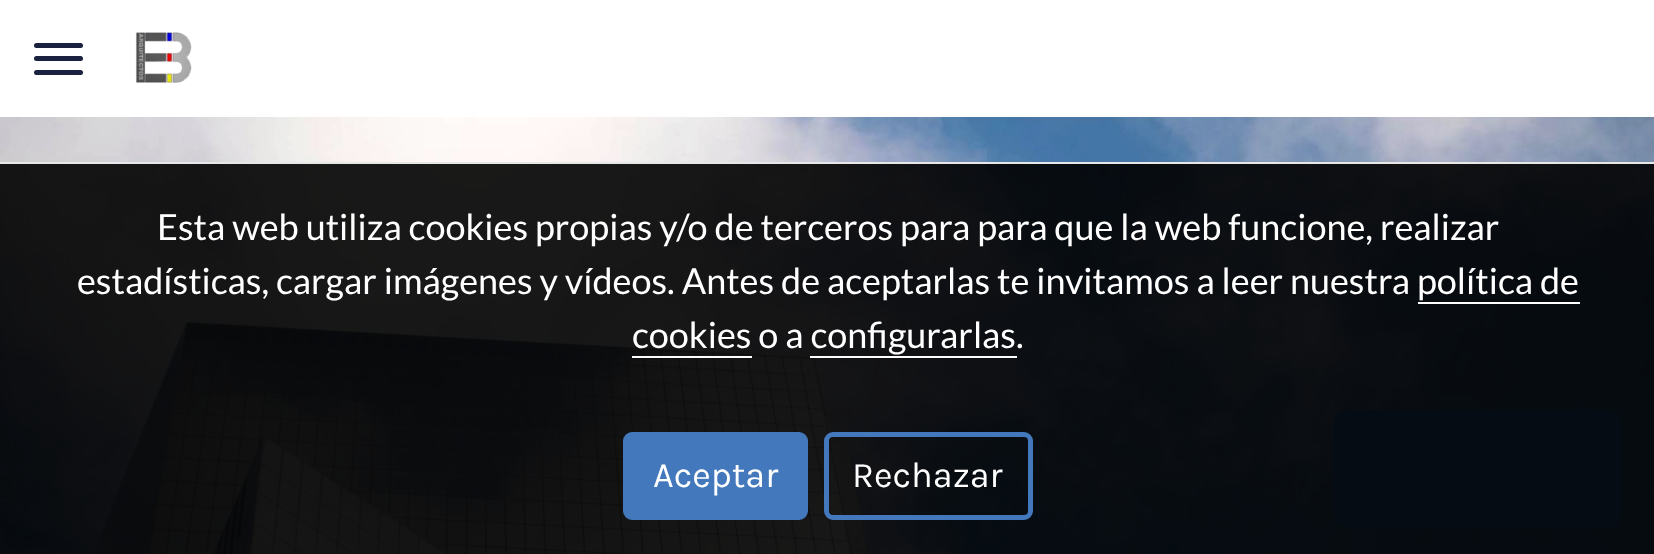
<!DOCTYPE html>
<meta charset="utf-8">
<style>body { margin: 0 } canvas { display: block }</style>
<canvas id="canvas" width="1654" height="554"></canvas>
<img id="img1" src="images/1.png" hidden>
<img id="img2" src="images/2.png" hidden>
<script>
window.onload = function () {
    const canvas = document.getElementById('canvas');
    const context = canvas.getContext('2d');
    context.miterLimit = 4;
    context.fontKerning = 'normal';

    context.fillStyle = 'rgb(255, 255, 255)';
    context.fillRect(0, 0, 1654, 554);
    context.fillStyle = 'rgb(27, 33, 64)';
    context.beginPath();
    context.roundRect(34, 43, 49, 5, 2.5);
    context.fill();
    context.beginPath();
    context.roundRect(34, 56, 49, 5, 2.5);
    context.fill();
    context.beginPath();
    context.roundRect(34, 70, 49, 5, 2.5);
    context.fill();
    context.drawImage(document.getElementById('img1'), 135, 32, 57, 51);
    context.drawImage(document.getElementById('img2'), 0, 117, 1654, 437);
    context.fillStyle = 'rgb(67, 120, 188)';
    context.beginPath();
    context.roundRect(1336.5, 412.5, 283, 112, 6.5);
    context.fill();
    context.strokeStyle = 'rgb(67, 120, 188)';
    context.lineWidth = 5;
    context.stroke();
    context.fillStyle = 'rgba(0, 0, 0, 0.9)';
    context.fillRect(0, 164, 1654, 390);
    context.fillStyle = 'rgb(231, 231, 231)';
    context.fillRect(0, 162, 1654, 2);
    context.fillStyle = 'rgb(255, 255, 255)';
    context.fillRect(1418, 302, 162, 2);
    context.fillRect(632, 356, 120, 2);
    context.fillRect(810, 356, 207, 2);
    context.fillStyle = 'rgb(67, 120, 188)';
    context.beginPath();
    context.roundRect(625.5, 434.5, 180, 83, 6.5);
    context.fill();
    context.stroke();
    context.beginPath();
    context.roundRect(826.5, 434.5, 204, 83, 6.5);
    context.stroke();
    context.font = '36px Lato';
    context.fillStyle = 'rgb(255, 255, 255)';
    context.fillText('Esta web utiliza cookies propias y/o de terceros para para que la web funcione, realizar', 157, 240);
    context.fillText('estadísticas, cargar imágenes y vídeos. Antes de aceptarlas te invitamos a leer nuestra política de', 77, 294);
    context.fillText('cookies o a configurarlas.', 632, 348);
    context.font = '36px Karla';
    context.fillText('Aceptar', 653, 487);
    context.fillText('Rechazar', 852, 487);
};
</script>
